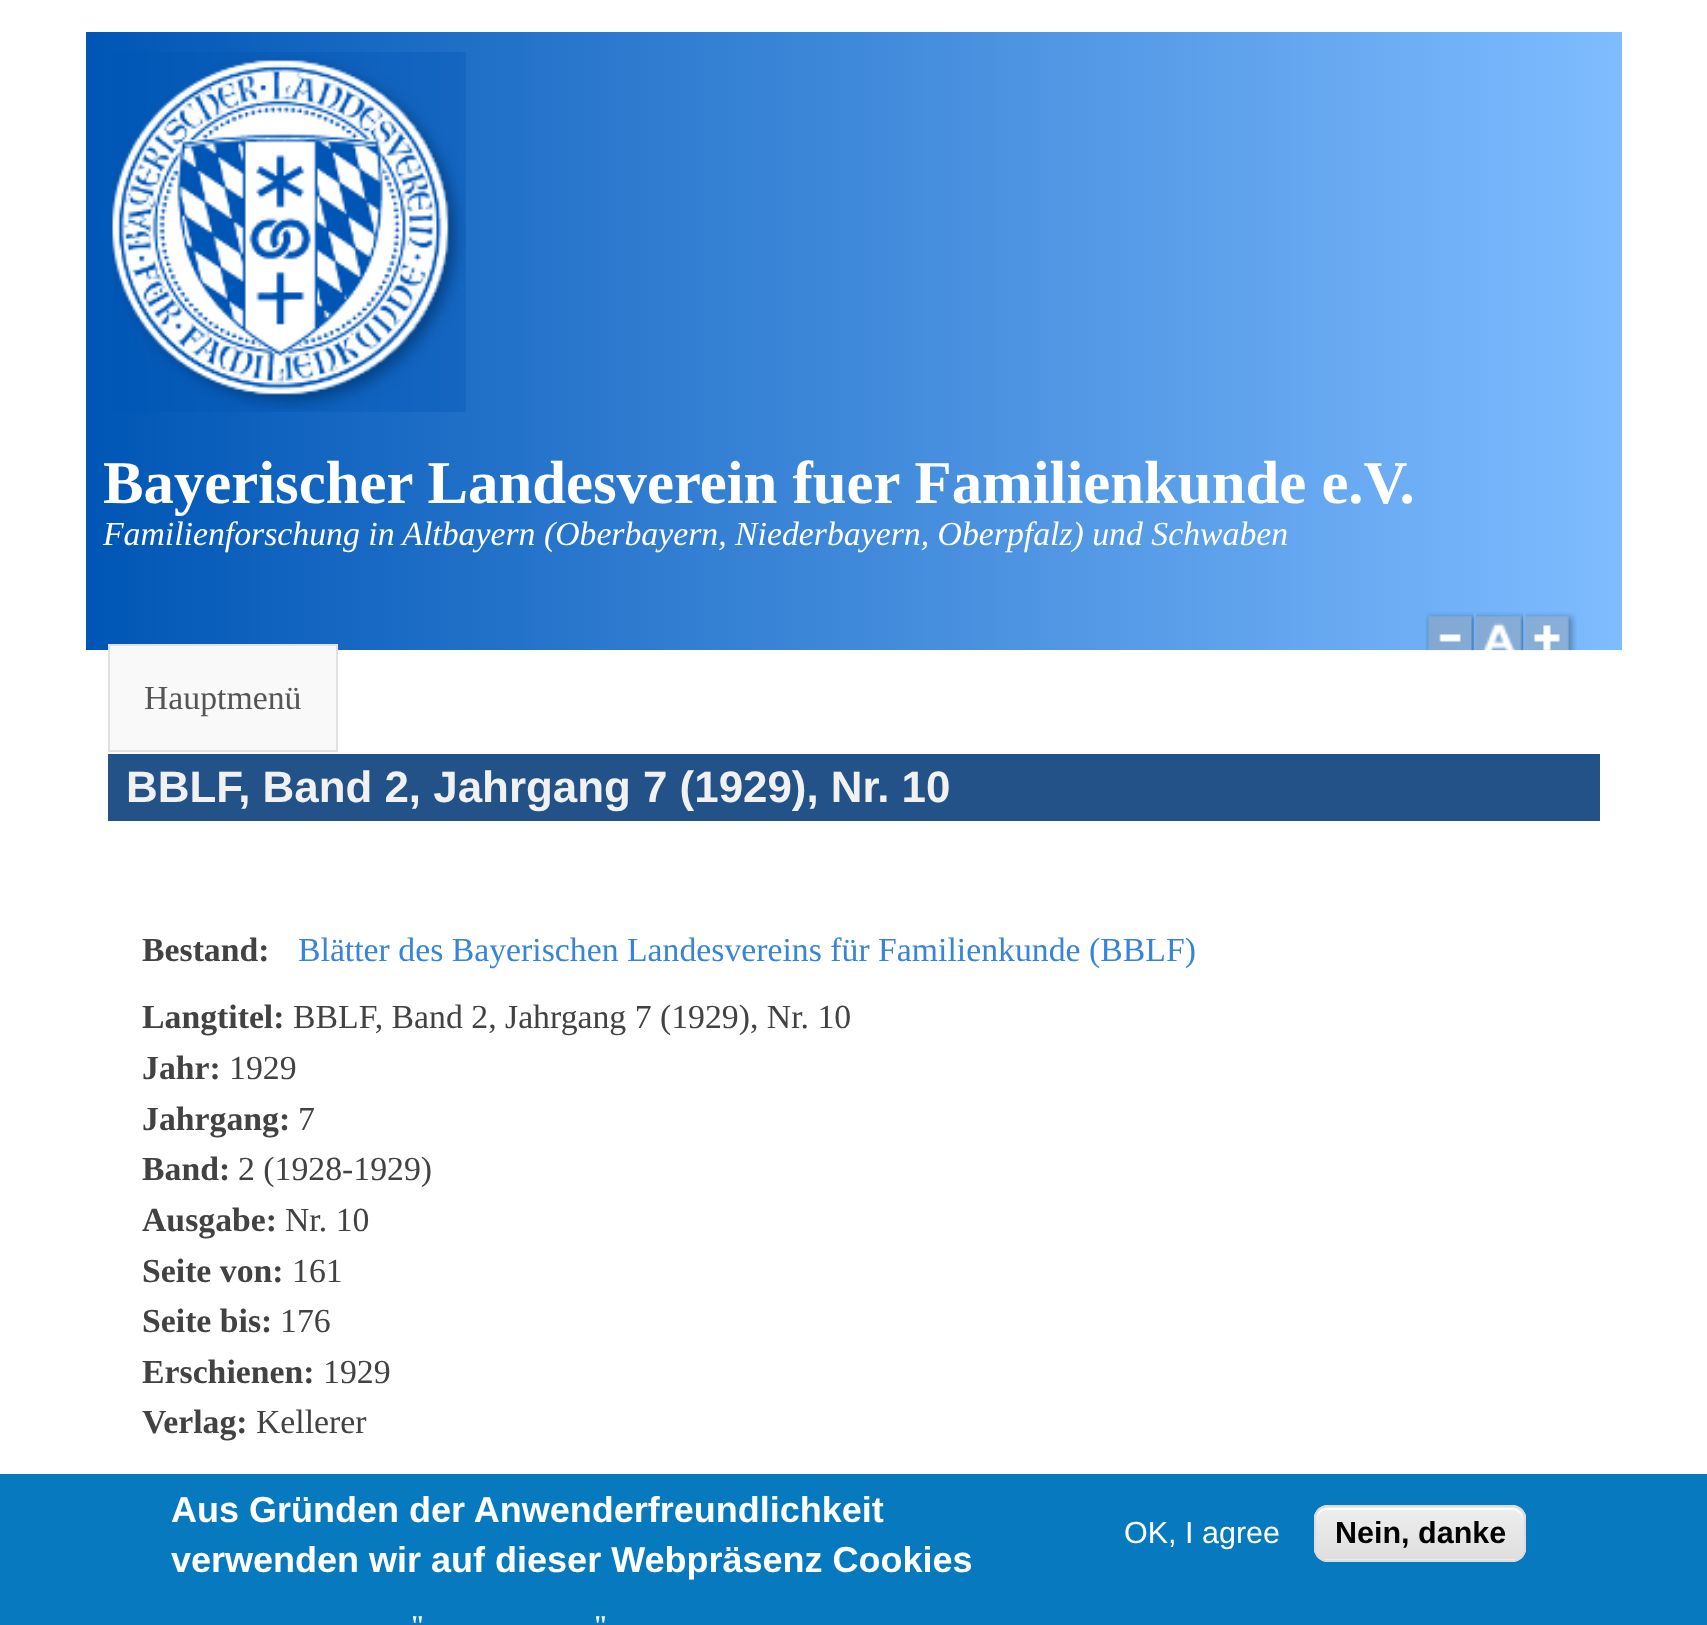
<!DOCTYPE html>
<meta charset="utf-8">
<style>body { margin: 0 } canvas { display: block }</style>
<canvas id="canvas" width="1707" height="1625"></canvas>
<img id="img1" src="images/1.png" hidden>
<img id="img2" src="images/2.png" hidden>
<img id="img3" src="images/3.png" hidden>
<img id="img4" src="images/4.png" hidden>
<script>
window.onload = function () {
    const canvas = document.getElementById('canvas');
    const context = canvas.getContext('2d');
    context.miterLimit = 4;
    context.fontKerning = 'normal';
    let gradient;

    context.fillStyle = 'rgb(255, 255, 255)';
    context.fillRect(0, 0, 1707, 1625);
    gradient = context.createLinearGradient(86, 341, 1622, 341);
    gradient.addColorStop(0, 'rgb(0, 86, 181)');
    gradient.addColorStop(1, 'rgb(127, 188, 255)');
    context.fillStyle = gradient;
    context.fillRect(86, 32, 1536, 618);
    context.drawImage(document.getElementById('img1'), 112, 52, 354, 360);
    context.drawImage(document.getElementById('img2'), 1425, 612, 49, 39);
    context.drawImage(document.getElementById('img3'), 1476, 612, 48, 39);
    context.drawImage(document.getElementById('img4'), 1525, 612, 52, 39);
    context.fillStyle = 'rgb(249, 249, 249)';
    context.beginPath();
    context.rect(109, 645, 228, 106);
    context.fill();
    context.strokeStyle = 'rgb(225, 225, 225)';
    context.lineWidth = 2;
    context.stroke();
    context.fillStyle = 'rgb(34, 82, 136)';
    context.fillRect(108, 754, 1492, 67);
    context.fillStyle = 'rgb(7, 121, 191)';
    context.fillRect(0, 1474, 1707, 151);
    context.fillStyle = 'rgb(237, 237, 237)';
    context.beginPath();
    context.roundRect(1314, 1505, 212, 57, 14);
    context.fill();
    context.save();
    context.beginPath();
    context.roundRect(1314, 1505, 212, 57, 14);
    context.clip();
    gradient = context.createLinearGradient(1420, 1508, 1420, 1559);
    gradient.addColorStop(0.05, 'rgb(237, 237, 237)');
    gradient.addColorStop(1, 'rgb(223, 223, 223)');
    context.fillStyle = gradient;
    context.fillRect(1314, 1508, 212, 51);
    context.restore();
    context.fillStyle = 'rgb(255, 255, 255)';
    context.beginPath();
    context.moveTo(1328, 1510);
    context.lineTo(1512, 1510);
    context.bezierCurveTo(1518, 1510, 1523, 1515, 1523, 1521);
    context.lineTo(1523, 1519);
    context.bezierCurveTo(1523, 1513, 1518, 1508, 1512, 1508);
    context.lineTo(1327, 1508);
    context.bezierCurveTo(1321, 1508, 1316, 1513, 1316, 1519);
    context.lineTo(1316, 1521);
    context.bezierCurveTo(1316, 1515, 1321, 1510, 1328, 1510);
    context.closePath();
    context.fill();
    context.beginPath();
    context.roundRect(1315, 1506, 210, 55, 13);
    context.strokeStyle = 'rgb(220, 220, 220)';
    context.stroke();
    context.font = 'bold 60.75px Liberation Serif';
    context.fillText('Bayerischer Landesverein fuer Familienkunde e.V.', 103, 503);
    context.font = 'italic 33.75px Liberation Serif';
    context.fillText('Familienforschung in Altbayern (Oberbayern, Niederbayern, Oberpfalz) und Schwaben', 103, 545);
    context.font = '33.75px Liberation Serif';
    context.fillStyle = 'rgb(85, 85, 85)';
    context.fillText('Hauptmenü', 144, 709);
    context.font = 'bold 43.9px Liberation Sans';
    context.fillStyle = 'rgb(241, 241, 241)';
    context.fillText('BBLF, Band 2, Jahrgang 7 (1929), Nr. 10', 126, 802);
    context.font = 'bold 33.75px Liberation Serif';
    context.fillStyle = 'rgb(66, 66, 66)';
    context.fillText('Bestand:', 142, 961);
    context.font = '33.75px Liberation Serif';
    context.fillStyle = 'rgb(55, 132, 218)';
    context.fillText('Blätter des Bayerischen Landesvereins für Familienkunde (BBLF)', 298, 961);
    context.font = 'bold 33.75px Liberation Serif';
    context.fillStyle = 'rgb(66, 66, 66)';
    context.fillText('Langtitel:', 142, 1028);
    context.font = '33.75px Liberation Serif';
    context.fillText('BBLF, Band 2, Jahrgang 7 (1929), Nr. 10', 293, 1028);
    context.font = 'bold 33.75px Liberation Serif';
    context.fillText('Jahr:', 142, 1079);
    context.font = '33.75px Liberation Serif';
    context.fillText('1929', 229, 1079);
    context.font = 'bold 33.75px Liberation Serif';
    context.fillText('Jahrgang:', 142, 1130);
    context.font = '33.75px Liberation Serif';
    context.fillText('7', 298, 1130);
    context.font = 'bold 33.75px Liberation Serif';
    context.fillText('Band:', 142, 1180);
    context.font = '33.75px Liberation Serif';
    context.fillText('2 (1928-1929)', 238, 1180);
    context.font = 'bold 33.75px Liberation Serif';
    context.fillText('Ausgabe:', 142, 1231);
    context.font = '33.75px Liberation Serif';
    context.fillText('Nr. 10', 285, 1231);
    context.font = 'bold 33.75px Liberation Serif';
    context.fillText('Seite von:', 142, 1282);
    context.font = '33.75px Liberation Serif';
    context.fillText('161', 292, 1282);
    context.font = 'bold 33.75px Liberation Serif';
    context.fillText('Seite bis:', 142, 1332);
    context.font = '33.75px Liberation Serif';
    context.fillText('176', 280, 1332);
    context.font = 'bold 33.75px Liberation Serif';
    context.fillText('Erschienen:', 142, 1383);
    context.font = '33.75px Liberation Serif';
    context.fillText('1929', 323, 1383);
    context.font = 'bold 33.75px Liberation Serif';
    context.fillText('Verlag:', 142, 1433);
    context.font = '33.75px Liberation Serif';
    context.fillText('Kellerer', 256, 1433);
    context.font = 'bold 36px Liberation Sans';
    context.fillStyle = 'rgb(255, 255, 255)';
    context.fillText('Aus Gründen der Anwenderfreundlichkeit', 171, 1522);
    context.fillText('verwenden wir auf dieser Webpräsenz Cookies', 171, 1572);
    context.font = 'bold 27px Liberation Serif';
    context.fillText('"', 410, 1634);
    context.fillText('"', 593, 1634);
    context.font = '30.5px Liberation Sans';
    context.fillText('OK, I agree', 1124, 1543);
    context.font = 'bold 30.5px Liberation Sans';
    context.fillStyle = 'rgb(0, 0, 0)';
    context.fillText('Nein, danke', 1335, 1543);
};
</script>
